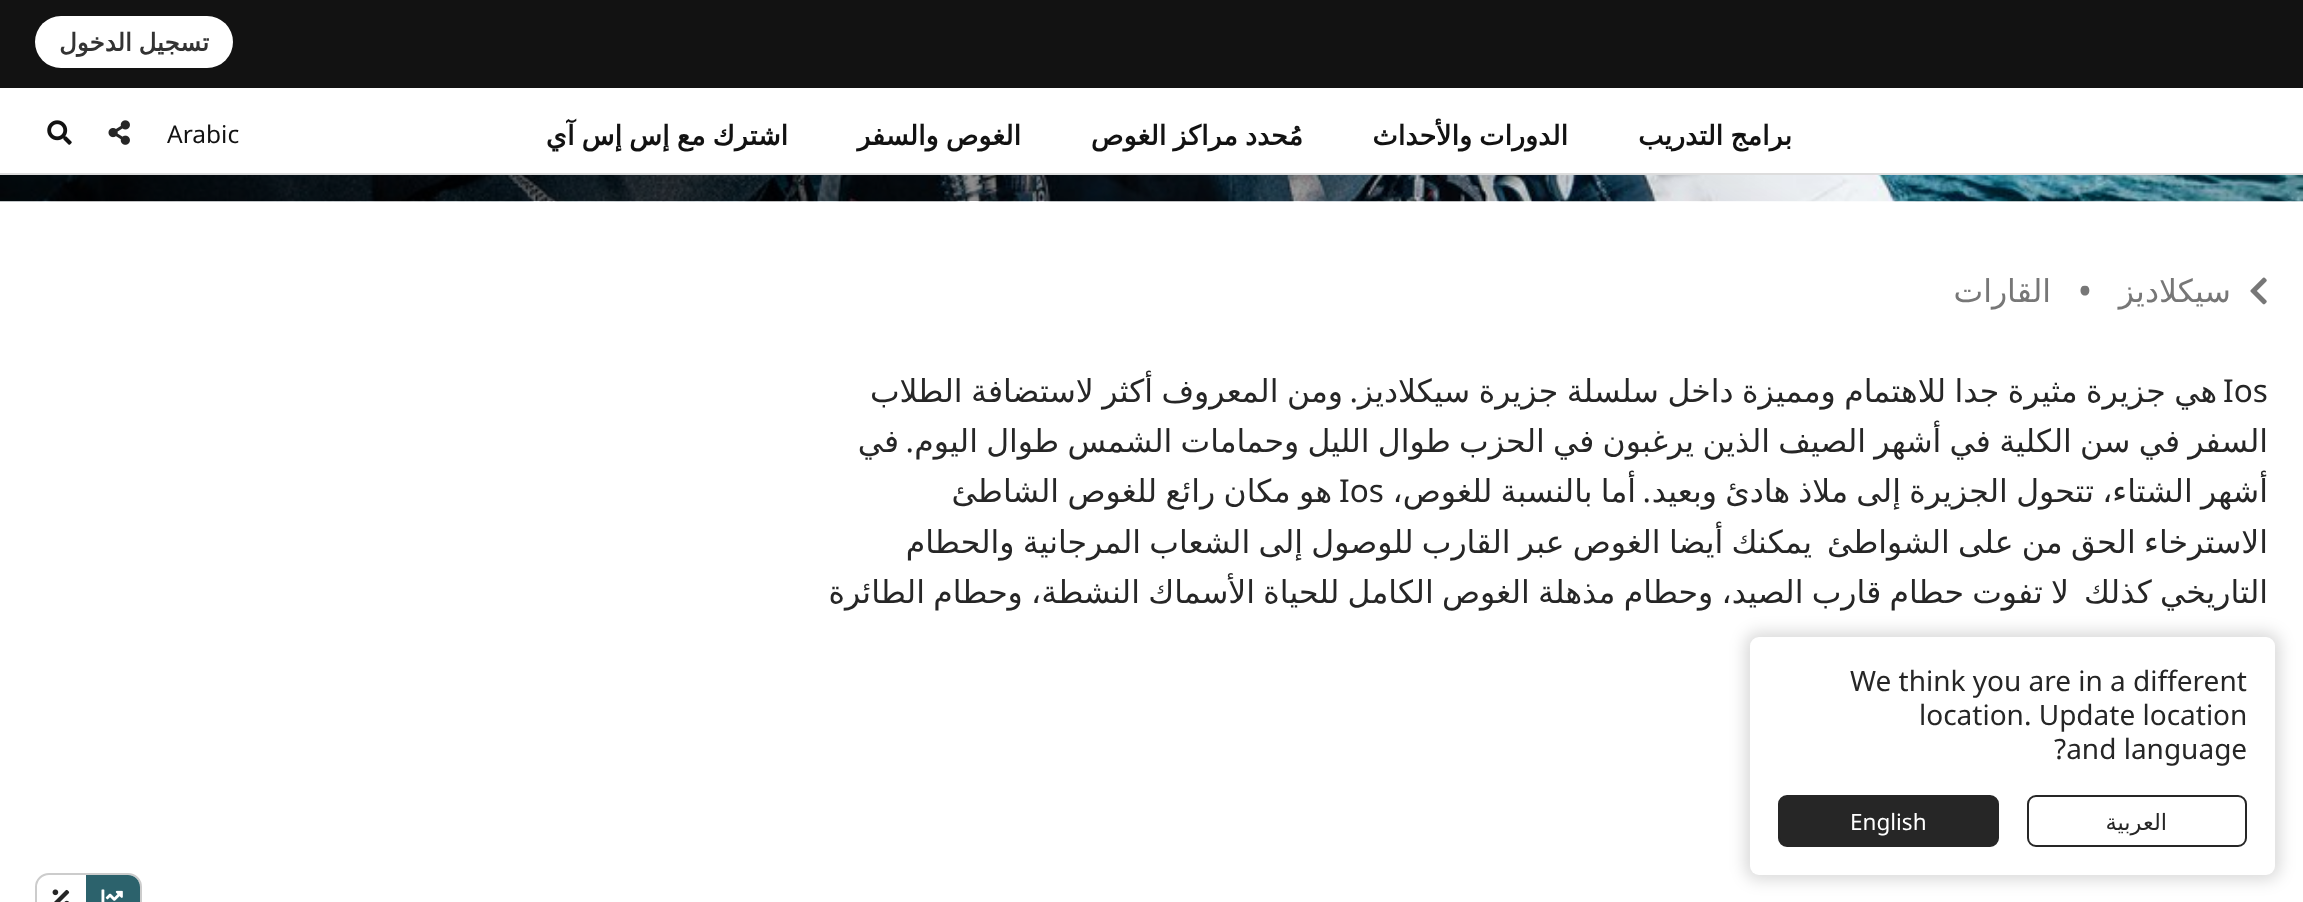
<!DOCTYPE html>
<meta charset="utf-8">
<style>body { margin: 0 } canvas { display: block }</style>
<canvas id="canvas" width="2303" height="902"></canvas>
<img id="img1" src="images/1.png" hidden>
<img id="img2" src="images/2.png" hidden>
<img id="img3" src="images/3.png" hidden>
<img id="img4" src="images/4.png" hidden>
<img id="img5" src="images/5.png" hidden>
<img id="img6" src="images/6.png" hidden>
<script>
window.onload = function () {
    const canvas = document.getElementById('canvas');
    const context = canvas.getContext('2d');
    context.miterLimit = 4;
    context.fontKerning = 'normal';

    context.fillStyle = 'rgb(255, 255, 255)';
    context.fillRect(0, 0, 2303, 902);
    context.fillStyle = 'rgb(18, 18, 18)';
    context.fillRect(0, 0, 2303, 88);
    context.fillStyle = 'rgb(255, 255, 255)';
    context.beginPath();
    context.roundRect(35, 16, 198, 52, 26);
    context.fill();
    context.fillStyle = 'rgb(221, 221, 221)';
    context.fillRect(0, 173, 2303, 2);
    context.drawImage(document.getElementById('img1'), 108, 120, 22, 25);
    context.drawImage(document.getElementById('img2'), 47, 120, 25, 25);
    context.drawImage(document.getElementById('img3'), 0, 175, 2303, 27);
    context.drawImage(document.getElementById('img4'), 2250, 277, 17, 28);
    context.beginPath();
    context.roundRect(36, 874, 105, 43, 13);
    context.strokeStyle = 'rgb(204, 204, 204)';
    context.lineWidth = 2;
    context.stroke();
    context.fillStyle = 'rgb(44, 98, 108)';
    context.beginPath();
    context.moveTo(86, 875);
    context.lineTo(128, 875);
    context.bezierCurveTo(134.5, 875, 140, 880.5, 140, 887);
    context.lineTo(140, 902);
    context.bezierCurveTo(140, 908.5, 134.5, 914, 128, 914);
    context.lineTo(86, 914);
    context.closePath();
    context.fill();
    context.drawImage(document.getElementById('img5'), 101, 889, 22, 13);
    context.drawImage(document.getElementById('img6'), 52, 889, 18, 13);
    context.fillStyle = 'rgba(0, 0, 0, 0.15)';
    context.filter = 'blur(8px)';
    context.beginPath();
    context.roundRect(1745, 632, 535, 248, 14);
    context.fill();
    context.filter = 'none';
    context.fillStyle = 'rgb(255, 255, 255)';
    context.beginPath();
    context.roundRect(1750, 637, 525, 238, 9);
    context.fill();
    context.beginPath();
    context.roundRect(2028, 796, 218, 50, 8);
    context.strokeStyle = 'rgb(38, 38, 38)';
    context.stroke();
    context.fillStyle = 'rgb(38, 38, 38)';
    context.beginPath();
    context.roundRect(1779, 796, 219, 50, 8);
    context.fill();
    context.stroke();
    context.wordSpacing = '-1px';
    context.direction = 'rtl';
    context.font = 'bold 24.5px DejaVu Sans';
    context.fillStyle = 'rgb(51, 51, 51)';
    context.fillText('تسجيل الدخول', 209, 51);
    context.wordSpacing = '-1.5px';
    context.font = 'bold 27px DejaVu Sans';
    context.fillStyle = 'rgb(18, 18, 18)';
    context.fillText('برامج التدريب', 1792, 145);
    context.fillText('الدورات والأحداث', 1568, 145);
    context.fillText('مُحدد مراكز الغوص', 1303, 145);
    context.fillText('الغوص والسفر', 1021, 145);
    context.fillText('اشترك مع إس إس آي', 788, 145);
    context.wordSpacing = '0px';
    context.direction = 'ltr';
    context.font = '24.5px Noto Sans';
    context.fillText('Arabic', 167, 143);
    context.direction = 'rtl';
    context.font = '31.5px DejaVu Sans';
    context.fillStyle = 'rgb(119, 119, 119)';
    context.fillText('سيكلاديز', 2231, 302);
    context.direction = 'ltr';
    context.font = 'bold 31.5px Noto Sans';
    context.fillText('•', 2079, 302);
    context.direction = 'rtl';
    context.font = '31.5px DejaVu Sans';
    context.fillText('القارات', 2051, 302);
    context.wordSpacing = '-1.5px';
    context.fillStyle = 'rgb(38, 38, 38)';
    context.fillText('هي جزيرة مثيرة جدا للاهتمام ومميزة داخل سلسلة جزيرة سيكلاديز', 2217, 402);
    context.wordSpacing = '0px';
    context.direction = 'ltr';
    context.font = '31.5px Noto Sans';
    context.fillText('Ios', 2223, 402);
    context.direction = 'rtl';
    context.fillText('.', 1358, 402);
    context.wordSpacing = '-1.5px';
    context.font = '31.5px DejaVu Sans';
    context.fillText('ومن المعروف أكثر لاستضافة الطلاب', 1343, 402);
    context.save();
    context.beginPath();
    context.rect(35, 366, 2233, 301);
    context.clip();
    context.wordSpacing = '-1.75px';
    context.fillText('السفر في سن الكلية في أشهر الصيف الذين يرغبون في الحزب طوال الليل وحمامات الشمس طوال اليوم', 2268, 452);
    context.restore();
    context.wordSpacing = '0px';
    context.font = '31.5px Noto Sans';
    context.fillText('.', 914, 452);
    context.font = '31.5px DejaVu Sans';
    context.fillText('في', 899, 452);
    context.save();
    context.beginPath();
    context.rect(35, 366, 2233, 301);
    context.clip();
    context.wordSpacing = '-1.75px';
    context.fillText('أشهر الشتاء، تتحول الجزيرة إلى ملاذ هادئ وبعيد', 2268, 502);
    context.restore();
    context.font = '31.5px Noto Sans';
    context.fillText('.', 1651, 502);
    context.wordSpacing = '-1.75px';
    context.font = '31.5px DejaVu Sans';
    context.fillText('أما بالنسبة للغوص،', 1636, 502);
    context.wordSpacing = '0px';
    context.direction = 'ltr';
    context.font = '31.5px Noto Sans';
    context.fillText('Ios', 1339, 502);
    context.wordSpacing = '-1.5px';
    context.direction = 'rtl';
    context.font = '31.5px DejaVu Sans';
    context.fillText('هو مكان رائع للغوص الشاطئ', 1332, 502);
    context.save();
    context.beginPath();
    context.rect(35, 366, 2233, 301);
    context.clip();
    context.wordSpacing = '-1.75px';
    context.fillText('الاسترخاء الحق من على الشواطئ', 2268, 553);
    context.restore();
    context.wordSpacing = '-1.75px';
    context.fillText('يمكنك أيضا الغوص عبر القارب للوصول إلى الشعاب المرجانية والحطام', 1812, 553);
    context.fillText('التاريخي كذلك', 2268, 603);
    context.fillText('لا تفوت حطام قارب الصيد، وحطام مذهلة الغوص الكامل للحياة الأسماك النشطة، وحطام الطائرة', 2069, 603);
    context.wordSpacing = '0px';
    context.direction = 'ltr';
    context.font = '28px Noto Sans';
    context.fillText('We think you are in a different', 1850, 691);
    context.fillText('location. Update location', 1919, 725);
    context.fillText('?and language', 2054, 759);
    context.direction = 'rtl';
    context.font = '22.5px DejaVu Sans';
    context.fillText('العربية', 2167, 830);
    context.direction = 'ltr';
    context.font = '22.5px Noto Sans';
    context.fillStyle = 'rgb(255, 255, 255)';
    context.fillText('English', 1850, 830);
};
</script>
